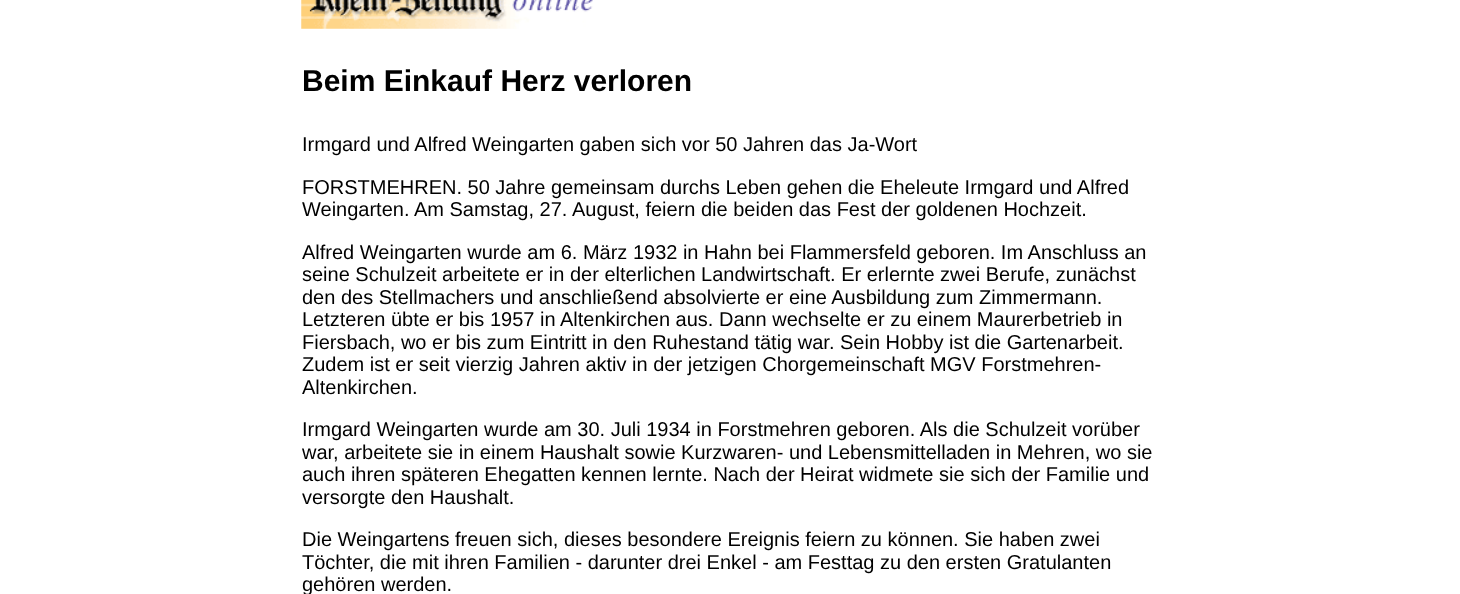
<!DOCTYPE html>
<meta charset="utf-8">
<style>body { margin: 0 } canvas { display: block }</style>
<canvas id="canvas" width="1460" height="594"></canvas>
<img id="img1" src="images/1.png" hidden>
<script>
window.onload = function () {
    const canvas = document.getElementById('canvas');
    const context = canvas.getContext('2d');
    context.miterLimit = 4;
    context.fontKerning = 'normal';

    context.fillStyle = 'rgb(255, 255, 255)';
    context.fillRect(0, 0, 1460, 594);
    context.drawImage(document.getElementById('img1'), 301, 0, 292, 29);
    context.font = 'bold 30px Liberation Sans';
    context.fillStyle = 'rgb(0, 0, 0)';
    context.fillText('Beim Einkauf Herz verloren', 302, 91);
    context.font = '20px Liberation Sans';
    context.fillText('Irmgard und Alfred Weingarten gaben sich vor 50 Jahren das Ja-Wort', 302, 151);
    context.fillText('FORSTMEHREN. 50 Jahre gemeinsam durchs Leben gehen die Eheleute Irmgard und Alfred', 302, 194);
    context.fillText('Weingarten. Am Samstag, 27.', 302, 216);
    context.fillText('August, feiern die beiden das Fest der goldenen Hochzeit.', 572, 216);
    context.fillText('Alfred Weingarten wurde am 6. März 1932 in Hahn bei Flammersfeld geboren. Im Anschluss an', 302, 259);
    context.fillText('seine Schulzeit arbeitete er in der elterlichen Landwirtschaft. Er erlernte zwei Berufe, zunächst', 302, 281);
    context.fillText('den des Stellmachers und anschließend absolvierte er eine Ausbildung zum Zimmermann.', 302, 304);
    context.fillText('Letzteren übte er bis 1957 in Altenkirchen aus. Dann wechselte er zu einem Maurerbetrieb in', 302, 326);
    context.fillText('Fiersbach, wo er bis zum Eintritt in den Ruhestand tätig war. Sein Hobby ist die Gartenarbeit.', 302, 349);
    context.fillText('Zudem ist er seit vierzig Jahren aktiv in der jetzigen Chorgemeinschaft MGV Forstmehren-', 302, 371);
    context.fillText('Altenkirchen.', 302, 394);
    context.fillText('Irmgard Weingarten wurde am 30. Juli 1934 in Forstmehren geboren. Als die Schulzeit vorüber', 302, 436);
    context.fillText('war, arbeitete sie in einem Haushalt sowie Kurzwaren- und Lebensmittelladen in Mehren, wo sie', 302, 459);
    context.fillText('auch ihren späteren Ehegatten kennen lernte. Nach der Heirat widmete sie sich der Familie und', 302, 481);
    context.fillText('versorgte den Haushalt.', 302, 504);
    context.fillText('Die Weingartens freuen sich, dieses besondere Ereignis feiern zu können. Sie haben zwei', 302, 546);
    context.fillText('Töchter, die mit ihren Familien - darunter drei Enkel - am Festtag zu den ersten Gratulanten', 302, 569);
    context.fillText('gehören werden.', 302, 591);
};
</script>
